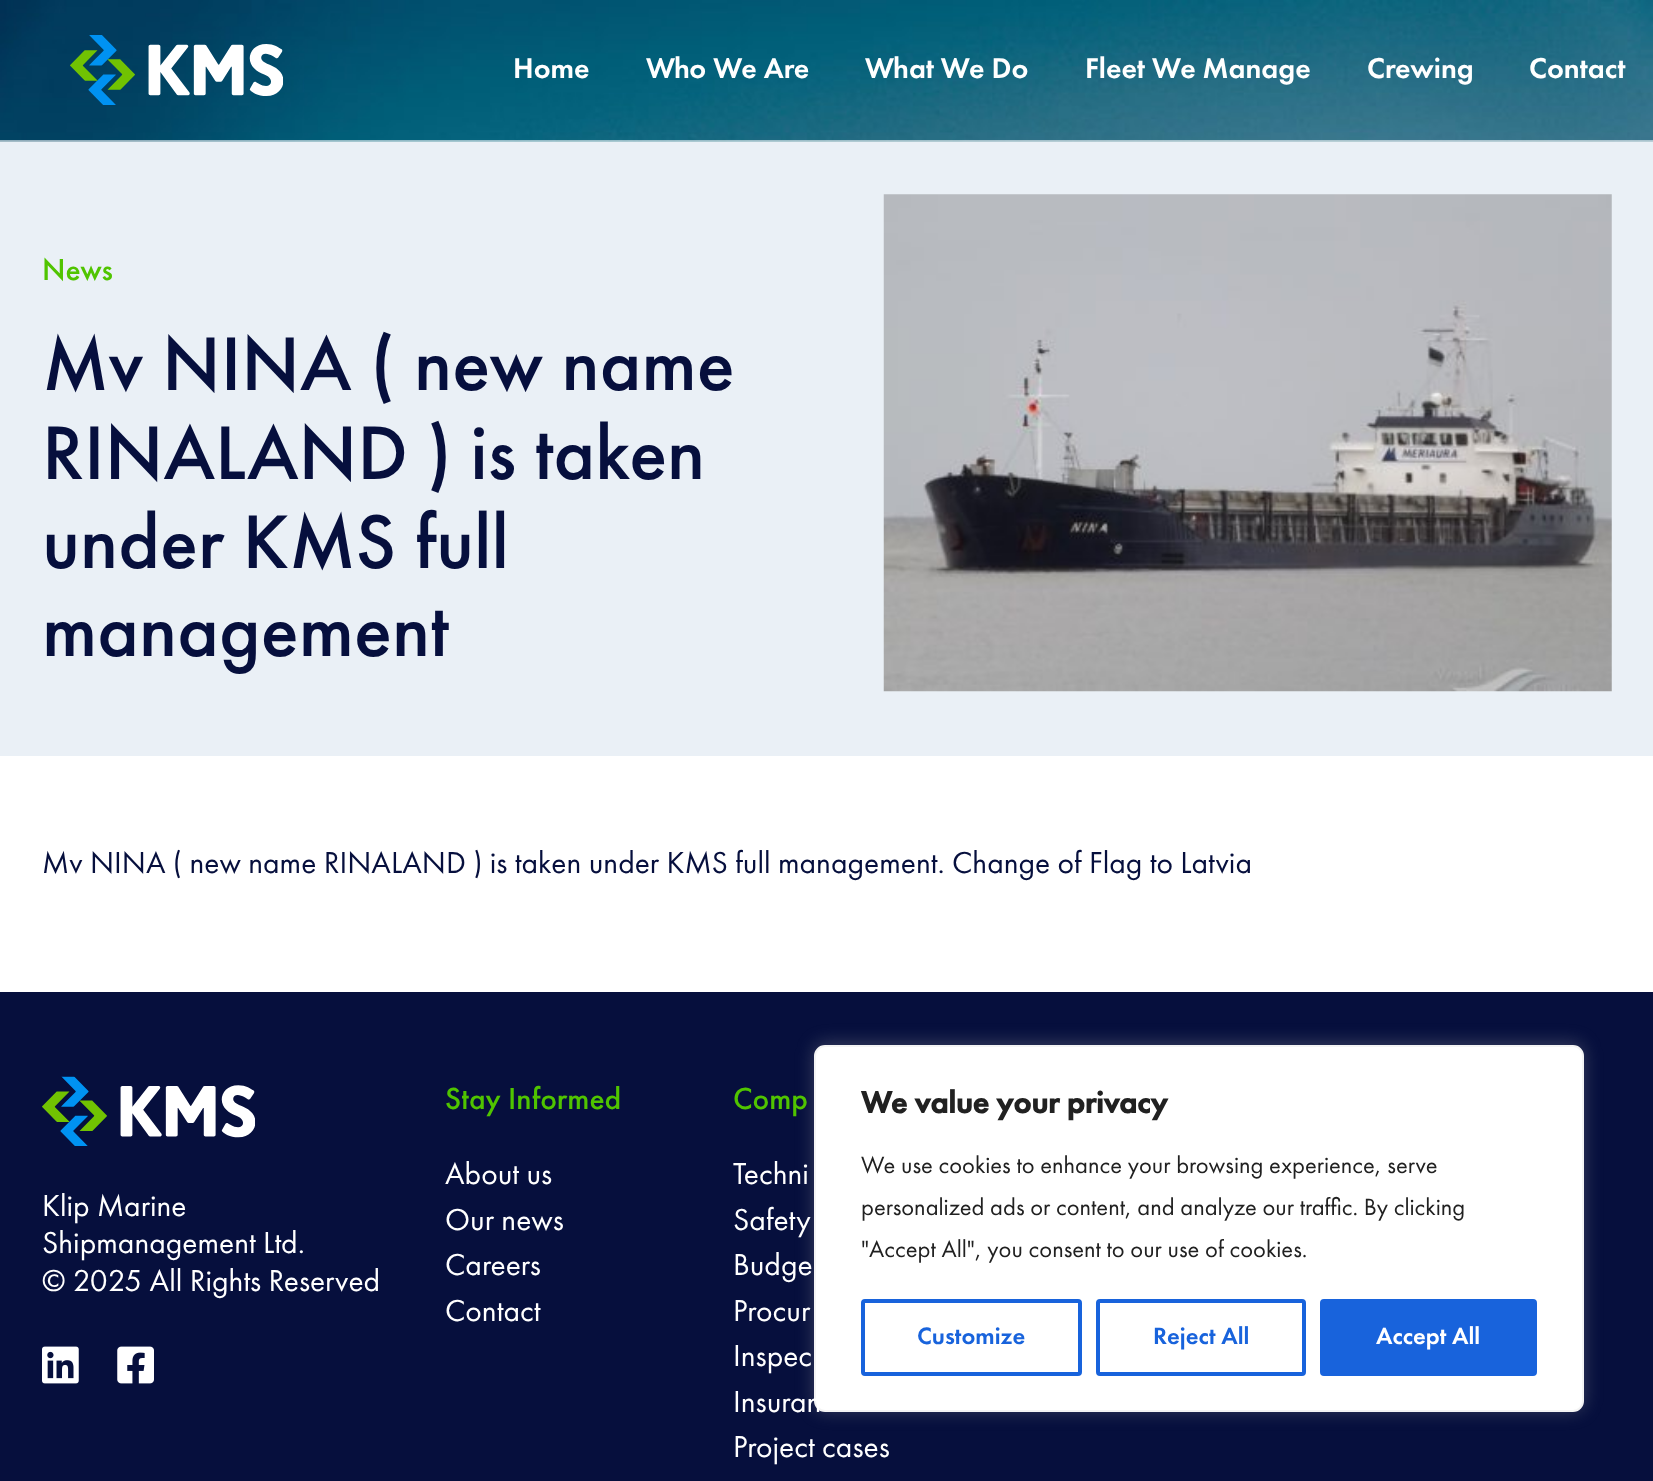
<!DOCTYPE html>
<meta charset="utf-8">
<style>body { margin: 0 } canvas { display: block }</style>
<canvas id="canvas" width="1653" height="1481"></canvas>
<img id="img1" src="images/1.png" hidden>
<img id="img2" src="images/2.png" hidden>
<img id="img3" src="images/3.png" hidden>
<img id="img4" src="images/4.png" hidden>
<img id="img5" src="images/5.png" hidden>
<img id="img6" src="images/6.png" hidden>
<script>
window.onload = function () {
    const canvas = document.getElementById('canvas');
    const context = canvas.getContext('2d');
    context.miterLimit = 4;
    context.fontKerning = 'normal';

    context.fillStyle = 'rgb(255, 255, 255)';
    context.fillRect(0, 0, 1653, 1481);
    context.drawImage(document.getElementById('img1'), 0, 0, 1653, 142);
    context.fillStyle = 'rgba(255, 255, 255, 0.5)';
    context.fillRect(0, 140, 1653, 2);
    context.drawImage(document.getElementById('img2'), 70, 35, 214, 70);
    context.fillStyle = 'rgb(234, 240, 246)';
    context.fillRect(0, 142, 1653, 614);
    context.drawImage(document.getElementById('img3'), 883, 194, 729, 498);
    context.fillStyle = 'rgb(6, 15, 61)';
    context.fillRect(0, 992, 1653, 489);
    context.drawImage(document.getElementById('img4'), 42, 1076, 214, 70);
    context.drawImage(document.getElementById('img5'), 42, 1346, 37, 38);
    context.drawImage(document.getElementById('img6'), 117, 1346, 37, 38);
    context.fillStyle = 'rgba(172, 171, 171, 0.3)';
    context.filter = 'blur(9px)';
    context.beginPath();
    context.roundRect(814, 1043, 770, 368, 11);
    context.fill();
    context.filter = 'none';
    context.fillStyle = 'rgb(255, 255, 255)';
    context.beginPath();
    context.roundRect(815, 1046, 768, 365, 10);
    context.fill();
    context.strokeStyle = 'rgb(244, 244, 244)';
    context.lineWidth = 2;
    context.stroke();
    context.beginPath();
    context.roundRect(863, 1301, 217, 73, 2);
    context.strokeStyle = 'rgb(24, 99, 220)';
    context.lineWidth = 4;
    context.stroke();
    context.beginPath();
    context.roundRect(1098, 1301, 206, 73, 2);
    context.stroke();
    context.fillStyle = 'rgb(24, 99, 220)';
    context.beginPath();
    context.roundRect(1322, 1301, 213, 73, 2);
    context.fill();
    context.stroke();
    context.font = '500 29.75px "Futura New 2"';
    context.fillStyle = 'rgb(255, 255, 255)';
    context.fillText('Home', 513, 78);
    context.fillText('Who We Are', 646, 78);
    context.fillText('What We Do', 865, 78);
    context.fillText('Fleet We Manage', 1085, 78);
    context.fillText('Crewing', 1367, 78);
    context.fillText('Contact', 1529, 78);
    context.font = '500 31.5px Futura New';
    context.fillStyle = 'rgb(80, 196, 0)';
    context.fillText('News', 42, 280);
    context.font = '500 78.75px Futura New';
    context.fillStyle = 'rgb(6, 15, 61)';
    context.fillText('Mv NINA ( new name', 42, 390);
    context.fillText('RINALAND ) is taken', 42, 479);
    context.fillText('under KMS full', 42, 568);
    context.fillText('management', 42, 656);
    context.font = '31.5px Futura New';
    context.fillText('Mv NINA ( new name RINALAND ) is taken under KMS full management. Change of Flag to Latvia', 42, 873);
    context.fillStyle = 'rgb(255, 255, 255)';
    context.fillText('Klip Marine', 42, 1216);
    context.fillText('Shipmanagement Ltd.', 42, 1253);
    context.fillText('© 2025 All Rights Reserved', 42, 1291);
    context.font = '500 31.5px Futura New';
    context.fillStyle = 'rgb(80, 196, 0)';
    context.fillText('Stay Informed', 445, 1109);
    context.font = '31.5px Futura New';
    context.fillStyle = 'rgb(255, 255, 255)';
    context.fillText('About us', 445, 1184);
    context.fillText('Our news', 445, 1230);
    context.fillText('Careers', 445, 1275);
    context.fillText('Contact', 445, 1321);
    context.font = '500 31.5px Futura New';
    context.fillStyle = 'rgb(80, 196, 0)';
    context.fillText('Comp', 733, 1109);
    context.font = '31.5px Futura New';
    context.fillStyle = 'rgb(255, 255, 255)';
    context.fillText('Techni', 733, 1184);
    context.fillText('Safety', 733, 1230);
    context.fillText('Budge', 733, 1275);
    context.fillText('Procur', 733, 1321);
    context.fillText('Inspec', 733, 1366);
    context.fillText('Insuran', 733, 1412);
    context.fillText('Project cases', 733, 1457);
    context.font = 'bold 31.5px Futura New';
    context.fillStyle = 'rgb(33, 33, 33)';
    context.fillText('We value your privacy', 861, 1113);
    context.font = '24.5px Futura New';
    context.fillText('We use cookies to enhance your browsing experience, serve', 861, 1173);
    context.fillText('personalized ads or content, and analyze our traffic. By clicking', 861, 1215);
    context.fillText('"Accept All", you consent to our use of cookies.', 861, 1257);
    context.font = '500 24.5px "Futura New 2"';
    context.fillStyle = 'rgb(24, 99, 220)';
    context.fillText('Customize', 917, 1344);
    context.fillText('Reject All', 1153, 1344);
    context.fillStyle = 'rgb(255, 255, 255)';
    context.fillText('Accept All', 1376, 1344);
};
</script>
